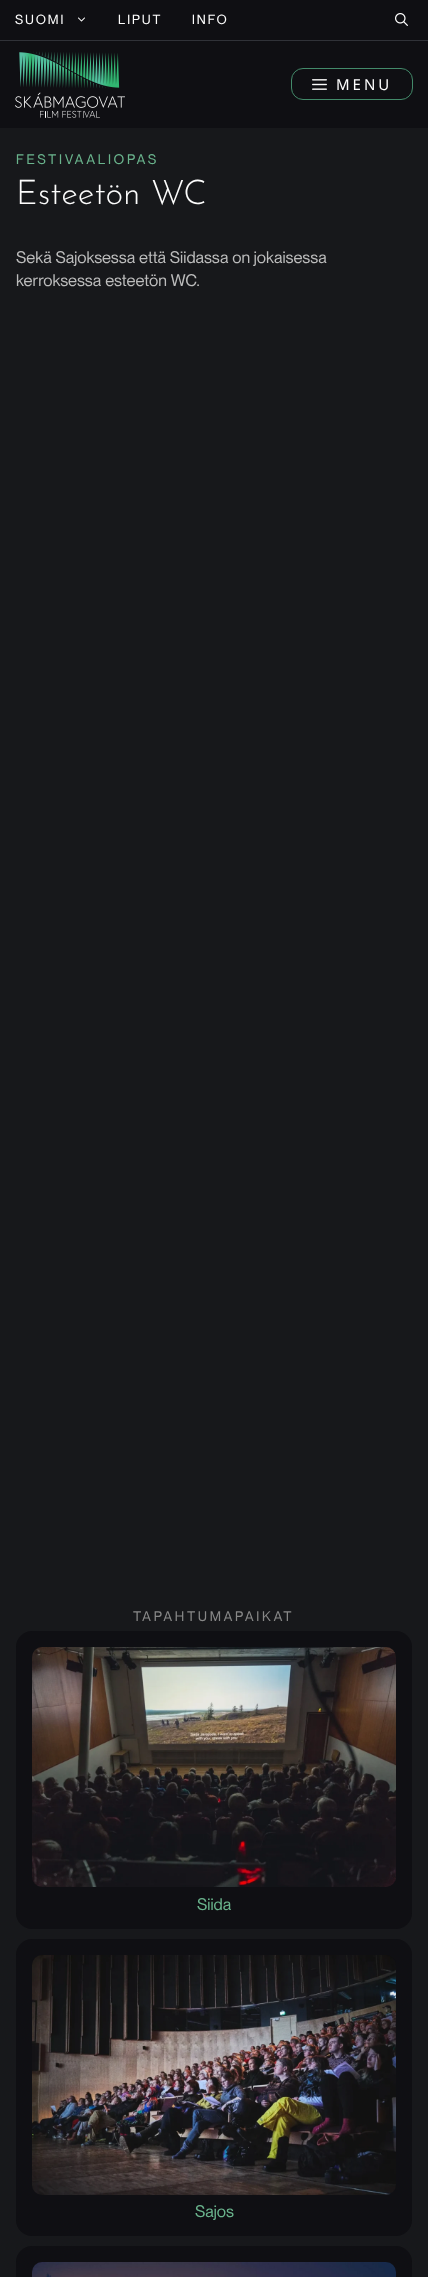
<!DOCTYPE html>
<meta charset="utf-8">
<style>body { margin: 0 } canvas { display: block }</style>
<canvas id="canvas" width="428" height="2277"></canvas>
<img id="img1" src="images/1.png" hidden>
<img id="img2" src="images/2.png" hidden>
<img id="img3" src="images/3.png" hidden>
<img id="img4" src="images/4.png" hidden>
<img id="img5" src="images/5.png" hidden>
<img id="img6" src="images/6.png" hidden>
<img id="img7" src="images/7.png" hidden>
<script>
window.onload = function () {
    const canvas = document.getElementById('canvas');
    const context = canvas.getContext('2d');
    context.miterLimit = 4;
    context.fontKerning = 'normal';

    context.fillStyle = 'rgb(23, 24, 27)';
    context.fillRect(0, 0, 428, 2277);
    context.fillStyle = 'rgb(15, 15, 19)';
    context.fillRect(0, 0, 428, 128);
    context.fillStyle = 'rgb(48, 50, 56)';
    context.fillRect(0, 40, 428, 1);
    context.drawImage(document.getElementById('img1'), 78, 17, 7, 5);
    context.drawImage(document.getElementById('img2'), 395, 13, 13, 13);
    context.drawImage(document.getElementById('img3'), 15, 51, 110, 67);
    context.beginPath();
    context.roundRect(291.5, 68.5, 121, 31, 11.5);
    context.strokeStyle = 'rgb(67, 138, 106)';
    context.stroke();
    context.drawImage(document.getElementById('img4'), 312, 79, 15, 11);
    context.fillStyle = 'rgb(15, 15, 19)';
    context.beginPath();
    context.roundRect(16, 1631, 396, 298, 16);
    context.fill();
    context.drawImage(document.getElementById('img5'), 32, 1647, 364, 240);
    context.beginPath();
    context.roundRect(16, 1939, 396, 297, 16);
    context.fill();
    context.drawImage(document.getElementById('img6'), 32, 1955, 364, 240);
    context.beginPath();
    context.roundRect(16, 2246, 396, 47, 16);
    context.fill();
    context.drawImage(document.getElementById('img7'), 32, 2262, 364, 15);
    context.letterSpacing = '2px';
    context.font = '13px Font';
    context.fillStyle = 'rgb(253, 253, 253)';
    context.fillText('SUOMI', 15, 24);
    context.fillText('LIPUT', 118, 24);
    context.fillText('INFO', 192, 24);
    context.letterSpacing = '3px';
    context.font = '15px Noto Sans';
    context.fillText('MENU', 336, 90);
    context.letterSpacing = '2.75px';
    context.font = '13.6px Font';
    context.fillStyle = 'rgb(106, 180, 141)';
    context.fillText('FESTIVAALIOPAS', 16, 164);
    context.letterSpacing = '0px';
    context.font = '100 34px Josefin Sans';
    context.fillStyle = 'rgb(253, 253, 253)';
    context.fillText('Esteetön WC', 16, 204);
    context.font = '16.4px Font';
    context.fillStyle = 'rgb(188, 188, 188)';
    context.fillText('Sekä Sajoksessa että Siidassa on jokaisessa', 16, 263);
    context.fillText('kerroksessa esteetön WC.', 16, 286);
    context.letterSpacing = '2.75px';
    context.font = '13.6px Font';
    context.fillStyle = 'rgb(136, 136, 136)';
    context.fillText('TAPAHTUMAPAIKAT', 133, 1621);
    context.letterSpacing = '0px';
    context.font = '16.4px Font';
    context.fillStyle = 'rgb(106, 180, 141)';
    context.fillText('Siida', 197, 1910);
    context.fillText('Sajos', 195, 2217);
};
</script>
